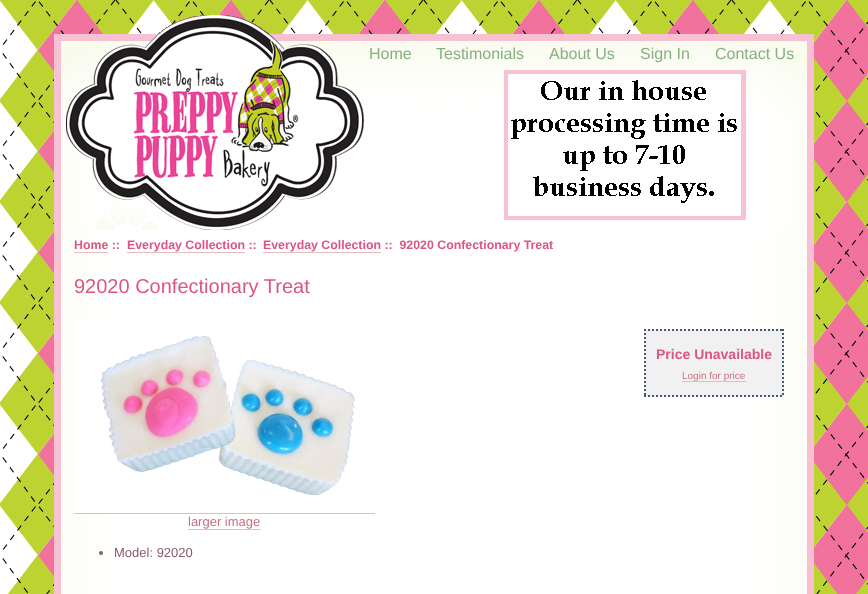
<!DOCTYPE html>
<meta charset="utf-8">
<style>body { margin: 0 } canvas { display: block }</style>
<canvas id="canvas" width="868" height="594"></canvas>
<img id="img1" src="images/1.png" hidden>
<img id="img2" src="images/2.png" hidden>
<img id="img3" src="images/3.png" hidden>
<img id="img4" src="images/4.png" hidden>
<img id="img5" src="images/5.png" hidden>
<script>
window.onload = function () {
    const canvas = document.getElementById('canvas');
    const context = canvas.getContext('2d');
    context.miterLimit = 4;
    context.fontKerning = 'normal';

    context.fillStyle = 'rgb(255, 255, 255)';
    context.fillRect(0, 0, 868, 594);
    context.drawImage(document.getElementById('img1'), 0, 0, 868, 594);
    context.drawImage(document.getElementById('img2'), 54, 15, 760, 215);
    context.drawImage(document.getElementById('img3'), 504, 70, 242, 150);
    context.drawImage(document.getElementById('img4'), 54, 230, 760, 364);
    context.fillStyle = 'rgb(226, 191, 186)';
    context.fillRect(74, 252, 34, 1);
    context.fillRect(127, 252, 118, 1);
    context.fillRect(263, 252, 118, 1);
    context.fillStyle = 'rgb(241, 241, 241)';
    context.fillRect(644, 329, 140, 68);
    context.beginPath();
    context.moveTo(644, 330);
    context.lineTo(784, 330);
    context.strokeStyle = 'rgb(67, 87, 117)';
    context.lineWidth = 2;
    context.setLineDash([2, 2]);
    context.stroke();
    context.beginPath();
    context.moveTo(783, 329);
    context.lineTo(783, 397);
    context.stroke();
    context.beginPath();
    context.moveTo(644, 396);
    context.lineTo(784, 396);
    context.stroke();
    context.beginPath();
    context.moveTo(645, 329);
    context.lineTo(645, 397);
    context.stroke();
    context.fillStyle = 'rgb(226, 191, 186)';
    context.fillRect(682, 381, 64, 1);
    context.strokeStyle = 'rgb(255, 255, 255)';
    context.lineWidth = 1;
    context.setLineDash([]);
    context.strokeRect(74.5, 319.5, 300, 193);
    context.drawImage(document.getElementById('img5'), 75, 320, 280, 192);
    context.fillRect(74, 513, 301, 1);
    context.fillRect(188, 529, 73, 1);
    context.fillStyle = 'rgb(139, 90, 107)';
    context.beginPath();
    context.arc(101, 553, 2, 0, 2 * Math.PI);
    context.fill();
    context.font = '16px Liberation Sans';
    context.fillStyle = 'rgb(135, 176, 130)';
    context.fillText('Home', 369, 59);
    context.fillText('Testimonials', 436, 59);
    context.fillText('About Us', 549, 59);
    context.fillText('Sign In', 640, 59);
    context.fillText('Contact Us', 715, 59);
    context.font = 'bold 12.35px Liberation Sans';
    context.fillStyle = 'rgb(220, 86, 133)';
    context.fillText('Home ::', 74, 249);
    context.fillText('Everyday Collection ::', 127, 249);
    context.fillText('Everyday Collection ::  92020 Confectionary Treat', 263, 249);
    context.font = '20px Liberation Sans';
    context.fillText('92020 Confectionary Treat', 74, 293);
    context.font = 'bold 14px Liberation Sans';
    context.fillText('Price Unavailable', 656, 359);
    context.font = '10px Liberation Sans';
    context.fillStyle = 'rgb(205, 112, 132)';
    context.fillText('Login for price', 682, 379);
    context.font = '13px Liberation Sans';
    context.fillText('larger image', 188, 526);
    context.fillStyle = 'rgb(139, 90, 107)';
    context.fillText('Model: 92020', 114, 557);
};
</script>
